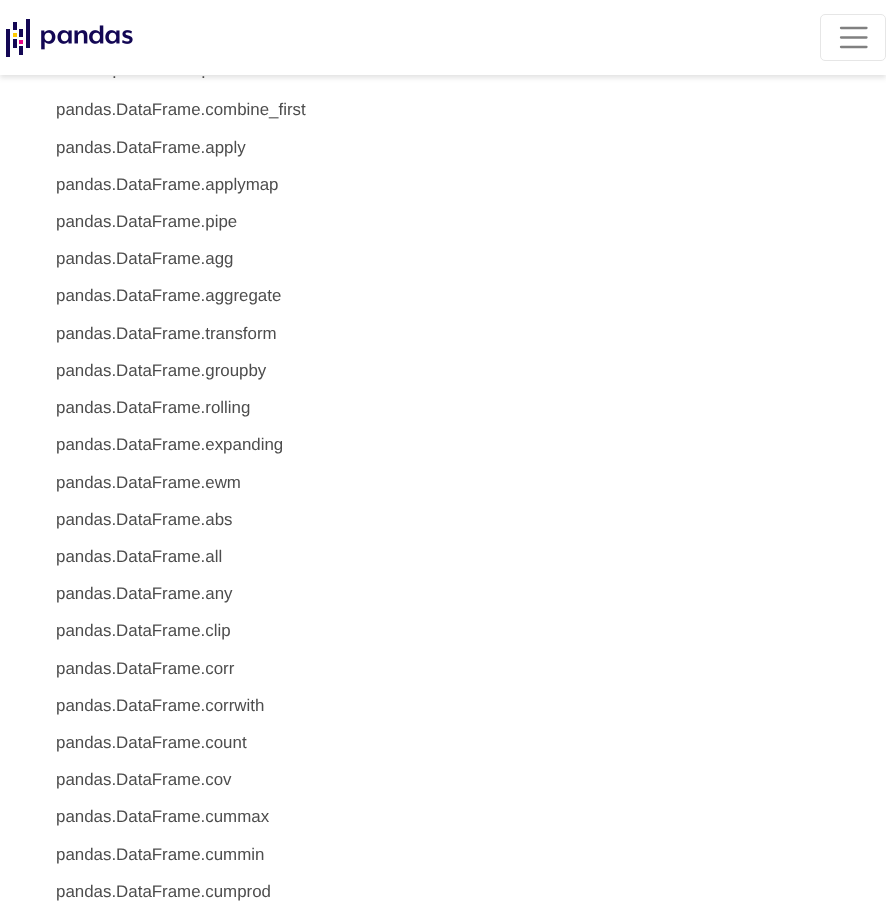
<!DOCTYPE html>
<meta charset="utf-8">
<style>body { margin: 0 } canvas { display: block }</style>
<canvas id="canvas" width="886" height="916"></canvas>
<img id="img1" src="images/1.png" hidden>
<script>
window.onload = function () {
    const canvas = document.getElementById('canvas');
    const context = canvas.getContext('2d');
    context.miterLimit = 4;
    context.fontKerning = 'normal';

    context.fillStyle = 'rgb(255, 255, 255)';
    context.fillRect(0, 0, 886, 916);
    context.fillStyle = 'rgba(0, 0, 0, 0.11)';
    context.filter = 'blur(2.5px)';
    context.beginPath();
    context.rect(0, 3, 886, 75);
    context.fill();
    context.filter = 'none';
    context.fillStyle = 'rgb(255, 255, 255)';
    context.fillRect(0, 0, 886, 75);
    context.drawImage(document.getElementById('img1'), 6, 19, 127, 38);
    context.beginPath();
    context.roundRect(820.5, 14.5, 65, 46, 4.5);
    context.strokeStyle = 'rgb(230, 230, 230)';
    context.stroke();
    context.beginPath();
    context.moveTo(841, 28);
    context.lineTo(866.5, 28);
    context.moveTo(841, 37.5);
    context.lineTo(866.5, 37.5);
    context.moveTo(841, 47);
    context.lineTo(866.5, 47);
    context.strokeStyle = 'rgb(128, 128, 128)';
    context.lineWidth = 2.3;
    context.lineCap = 'round';
    context.stroke();
    context.font = '16.9px Liberation Sans';
    context.fillStyle = 'rgb(77, 77, 77)';
    context.fillText('.', 112, 78);
    context.fillText('.', 201, 78);
    context.fillText('pandas.DataFrame.combine_first', 56, 115);
    context.fillText('pandas.DataFrame.apply', 56, 153);
    context.fillText('pandas.DataFrame.applymap', 56, 190);
    context.fillText('pandas.DataFrame.pipe', 56, 227);
    context.fillText('pandas.DataFrame.agg', 56, 264);
    context.fillText('pandas.DataFrame.aggregate', 56, 301);
    context.fillText('pandas.DataFrame.transform', 56, 339);
    context.fillText('pandas.DataFrame.groupby', 56, 376);
    context.fillText('pandas.DataFrame.rolling', 56, 413);
    context.fillText('pandas.DataFrame.expanding', 56, 450);
    context.fillText('pandas.DataFrame.ewm', 56, 488);
    context.fillText('pandas.DataFrame.abs', 56, 525);
    context.fillText('pandas.DataFrame.all', 56, 562);
    context.fillText('pandas.DataFrame.any', 56, 599);
    context.fillText('pandas.DataFrame.clip', 56, 636);
    context.fillText('pandas.DataFrame.corr', 56, 674);
    context.fillText('pandas.DataFrame.corrwith', 56, 711);
    context.fillText('pandas.DataFrame.count', 56, 748);
    context.fillText('pandas.DataFrame.cov', 56, 785);
    context.fillText('pandas.DataFrame.cummax', 56, 822);
    context.fillText('pandas.DataFrame.cummin', 56, 860);
    context.fillText('pandas.DataFrame.cumprod', 56, 897);
};
</script>
